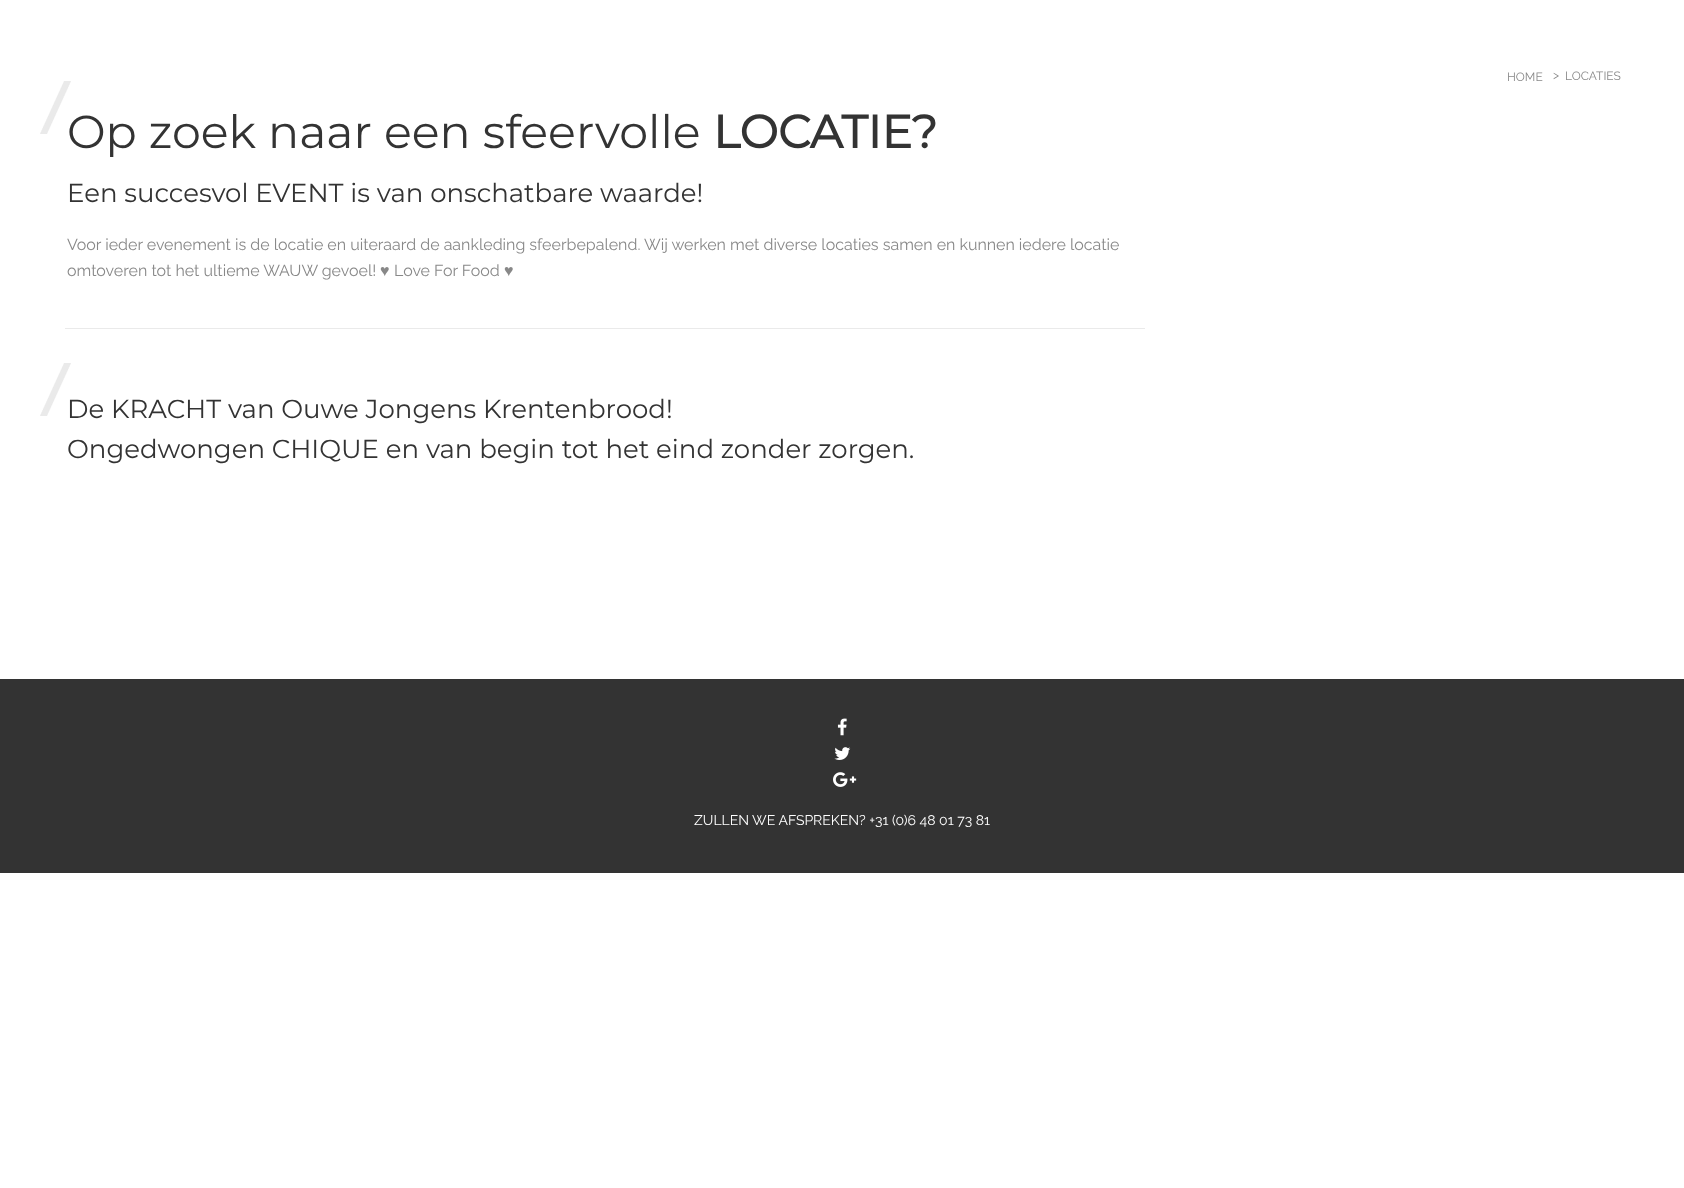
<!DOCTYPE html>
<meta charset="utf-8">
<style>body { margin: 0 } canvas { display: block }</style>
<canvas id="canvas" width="1684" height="1188"></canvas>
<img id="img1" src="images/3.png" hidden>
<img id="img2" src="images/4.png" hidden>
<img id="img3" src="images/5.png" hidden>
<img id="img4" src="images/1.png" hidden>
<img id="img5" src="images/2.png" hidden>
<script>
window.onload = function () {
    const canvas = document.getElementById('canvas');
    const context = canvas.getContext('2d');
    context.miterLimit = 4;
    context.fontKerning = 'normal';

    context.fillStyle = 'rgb(255, 255, 255)';
    context.fillRect(0, 0, 1684, 1188);
    context.fillStyle = 'rgb(234, 234, 234)';
    context.fillRect(65, 328, 1080, 1);
    context.fillStyle = 'rgb(51, 51, 51)';
    context.fillRect(0, 679, 1684, 194);
    context.drawImage(document.getElementById('img1'), 837, 718, 10, 18);
    context.drawImage(document.getElementById('img2'), 834, 747, 17, 13);
    context.drawImage(document.getElementById('img3'), 833, 772, 24, 15);
    context.font = '12px Raleway';
    context.fillStyle = 'rgb(136, 136, 136)';
    context.fillText('HOME', 1507, 81);
    context.fillText('>', 1553, 79);
    context.fillText('LOCATIES', 1565, 80);
    context.font = '100 46px Montserrat';
    context.fillStyle = 'rgb(51, 51, 51)';
    context.fillText('Op zoek naar een sfeervolle', 67, 148);
    context.drawImage(document.getElementById('img4'), 40, 81, 31, 53);
    context.font = 'bold 46px Montserrat';
    context.fillText('LOCATIE?', 713, 148);
    context.font = '100 26px Montserrat';
    context.fillText('Een succesvol EVENT is van onschatbare waarde!', 67, 202);
    context.font = '16px Raleway';
    context.fillStyle = 'rgb(136, 136, 136)';
    context.fillText('Voor ieder evenement is de locatie en uiteraard de aankleding sfeerbepalend. Wij werken met diverse locaties samen en kunnen iedere locatie', 67, 250);
    context.fillText('omtoveren tot het ultieme WAUW gevoel!', 67, 276);
    context.font = '16px Liberation Sans';
    context.fillText('♥', 380, 276);
    context.font = '16px Raleway';
    context.fillText('Love For Food', 394, 276);
    context.font = '16px Liberation Sans';
    context.fillText('♥', 504, 276);
    context.font = '100 26px Montserrat';
    context.fillStyle = 'rgb(51, 51, 51)';
    context.fillText('De KRACHT van Ouwe Jongens Krentenbrood!', 67, 418);
    context.drawImage(document.getElementById('img5'), 40, 363, 31, 53);
    context.fillText('Ongedwongen CHIQUE en van begin tot het eind zonder zorgen.', 67, 458);
    context.font = '14px Raleway';
    context.fillStyle = 'rgb(255, 255, 255)';
    context.fillText('ZULLEN WE AFSPREKEN? +31 (0)6 48 01 73 81', 694, 825);
};
</script>
